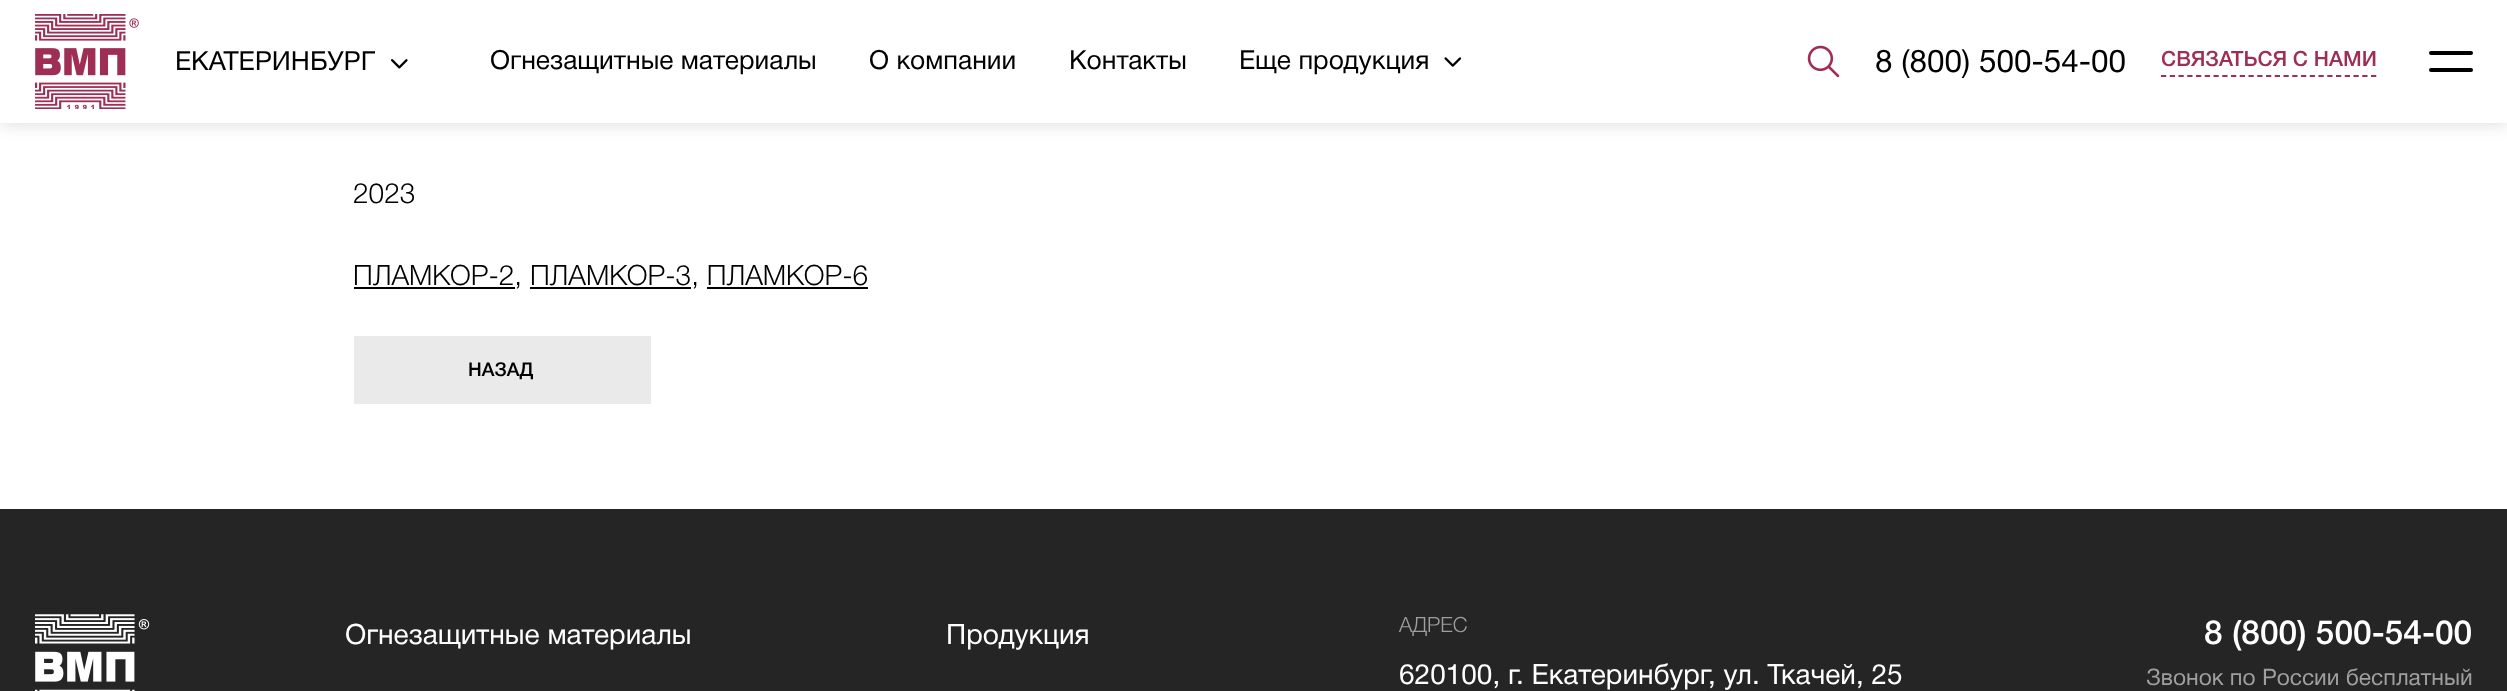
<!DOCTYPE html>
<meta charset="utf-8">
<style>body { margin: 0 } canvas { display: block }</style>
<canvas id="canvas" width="2507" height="691"></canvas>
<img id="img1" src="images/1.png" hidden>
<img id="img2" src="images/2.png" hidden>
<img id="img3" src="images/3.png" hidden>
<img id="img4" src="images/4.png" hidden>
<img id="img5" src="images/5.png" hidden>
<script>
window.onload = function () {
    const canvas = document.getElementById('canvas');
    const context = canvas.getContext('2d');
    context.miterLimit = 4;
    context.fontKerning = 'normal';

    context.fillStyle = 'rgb(255, 255, 255)';
    context.fillRect(0, 0, 2507, 691);
    context.fillStyle = 'rgba(0, 0, 0, 0.15)';
    context.filter = 'blur(9px)';
    context.beginPath();
    context.rect(0, 0, 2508, 123);
    context.fill();
    context.filter = 'none';
    context.fillStyle = 'rgb(255, 255, 255)';
    context.fillRect(0, 0, 2507, 123);
    context.drawImage(document.getElementById('img1'), 35, 14, 104, 95);
    context.drawImage(document.getElementById('img2'), 391, 59, 17, 10);
    context.drawImage(document.getElementById('img3'), 1444, 57, 18, 10);
    context.drawImage(document.getElementById('img4'), 1807, 45, 33, 33);
    context.beginPath();
    context.moveTo(2161, 76);
    context.lineTo(2376.5, 76);
    context.strokeStyle = 'rgb(159, 46, 85)';
    context.lineWidth = 1.8;
    context.setLineDash([5.25, 3.5]);
    context.stroke();
    context.fillStyle = 'rgb(0, 0, 0)';
    context.beginPath();
    context.roundRect(2429, 51, 44, 4, 2);
    context.fill();
    context.beginPath();
    context.roundRect(2429, 68, 44, 4, 2);
    context.fill();
    context.fillRect(354, 287, 161, 2);
    context.fillRect(530, 287, 161, 2);
    context.fillRect(707, 287, 161, 2);
    context.fillStyle = 'rgb(234, 234, 234)';
    context.fillRect(354, 336, 297, 68);
    context.fillStyle = 'rgb(37, 37, 37)';
    context.fillRect(0, 509, 2507, 182);
    context.drawImage(document.getElementById('img5'), 35, 614, 115, 77);
    context.save();
    context.beginPath();
    context.rect(175, 47, 200, 27);
    context.clip();
    context.font = '26.4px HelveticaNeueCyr';
    context.fillStyle = 'rgb(0, 0, 0)';
    context.fillText('ЕКАТЕРИНБУРГ', 175, 70);
    context.restore();
    context.font = '26.4px HelveticaNeueCyr';
    context.fillStyle = 'rgb(0, 0, 0)';
    context.fillText('Огнезащитные материалы', 490, 69);
    context.fillText('О компании', 869, 69);
    context.fillText('Контакты', 1069, 69);
    context.fillText('Еще продукция', 1239, 69);
    context.font = '31.5px HelveticaNeueCyr';
    context.fillText('8 (800) 500-54-00', 1875, 72);
    context.font = '500 21px HelveticaNeueCyr';
    context.fillStyle = 'rgb(159, 46, 85)';
    context.fillText('СВЯЗАТЬСЯ С НАМИ', 2161, 66);
    context.font = '300 28px HelveticaNeueCyr';
    context.fillStyle = 'rgb(0, 0, 0)';
    context.fillText('2023', 353, 203);
    context.fillText('ПЛАМКОР-2, ПЛАМКОР-3, ПЛАМКОР-6', 353, 285);
    context.font = '500 19px HelveticaNeueCyr';
    context.fillText('НАЗАД', 468, 376);
    context.font = '28px HelveticaNeueCyr';
    context.fillStyle = 'rgb(255, 255, 255)';
    context.fillText('Огнезащитные материалы', 345, 644);
    context.fillText('Продукция', 946, 644);
    context.font = '300 21px HelveticaNeueCyr';
    context.fillStyle = 'rgb(159, 159, 159)';
    context.fillText('АДРЕС', 1399, 632);
    context.font = '28px HelveticaNeueCyr';
    context.fillStyle = 'rgb(255, 255, 255)';
    context.fillText('620100, г. Екатеринбург, ул. Ткачей, 25', 1399, 684);
    context.font = '500 33.5px HelveticaNeueCyr';
    context.fillText('8 (800) 500-54-00', 2204, 644);
    context.font = '22.75px HelveticaNeueCyr';
    context.fillStyle = 'rgb(159, 159, 159)';
    context.fillText('Звонок по России бесплатный', 2146, 685);
};
</script>
